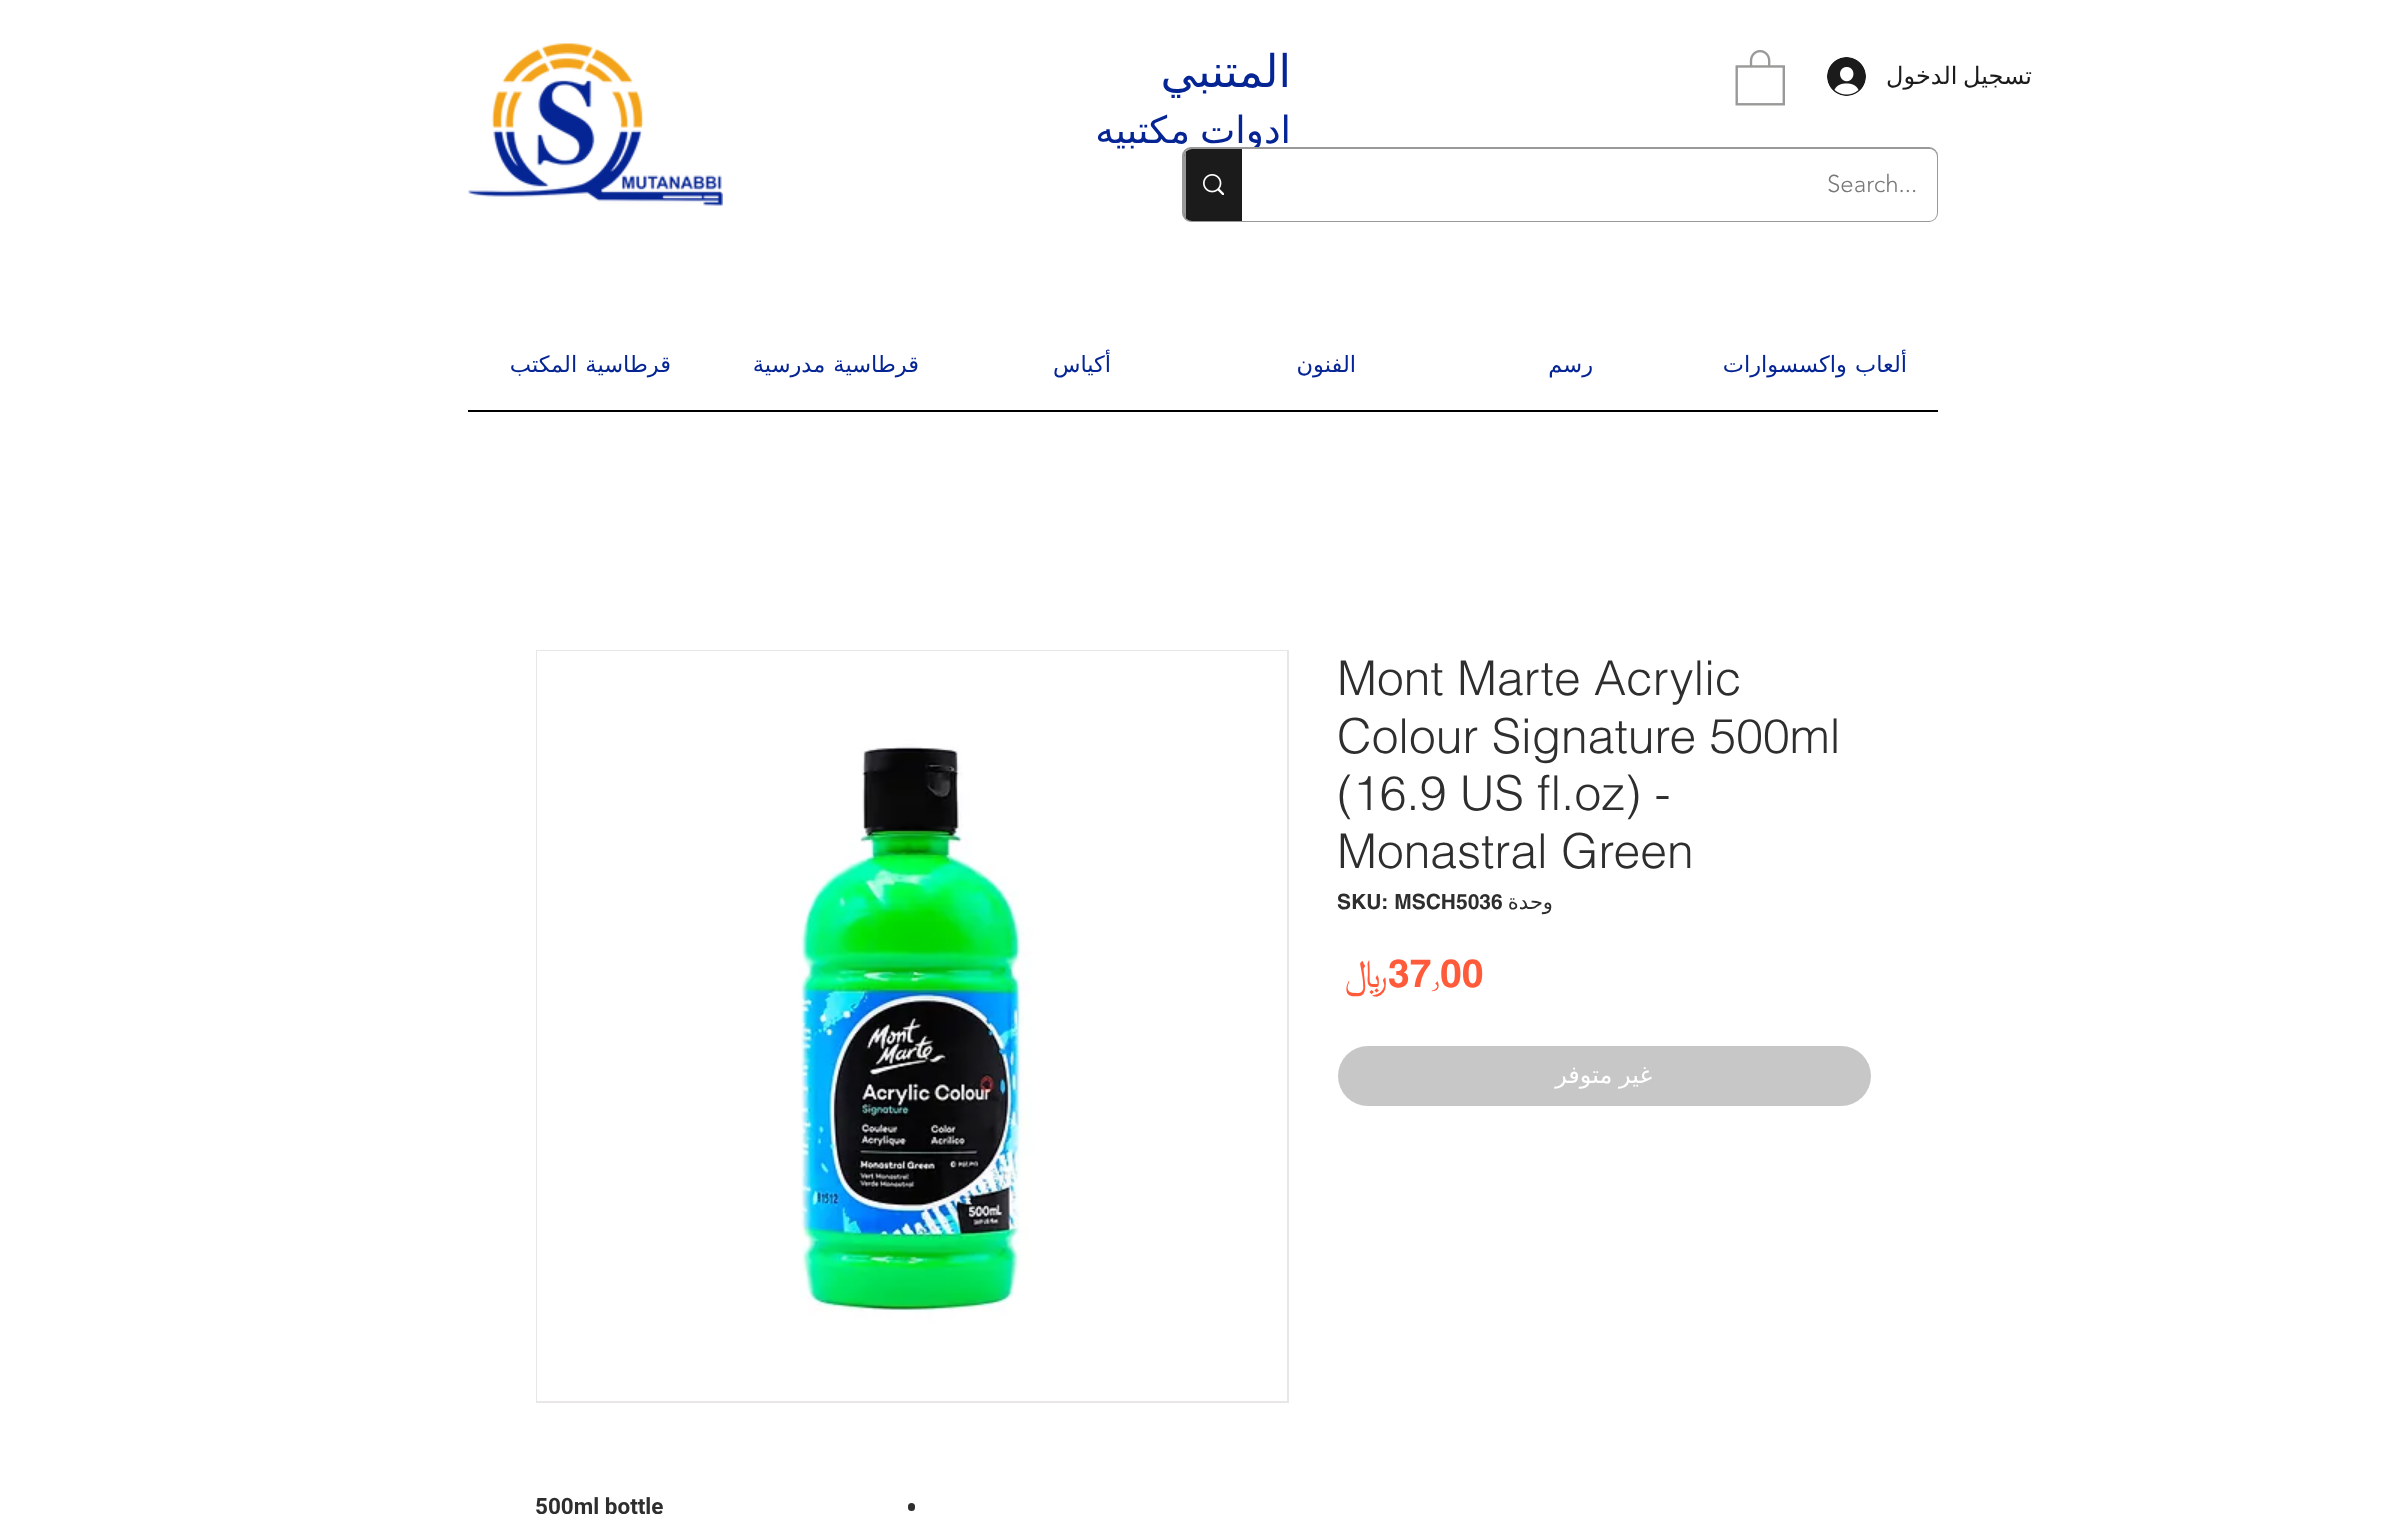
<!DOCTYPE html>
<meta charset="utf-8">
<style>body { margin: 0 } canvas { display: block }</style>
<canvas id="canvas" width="2404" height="1514"></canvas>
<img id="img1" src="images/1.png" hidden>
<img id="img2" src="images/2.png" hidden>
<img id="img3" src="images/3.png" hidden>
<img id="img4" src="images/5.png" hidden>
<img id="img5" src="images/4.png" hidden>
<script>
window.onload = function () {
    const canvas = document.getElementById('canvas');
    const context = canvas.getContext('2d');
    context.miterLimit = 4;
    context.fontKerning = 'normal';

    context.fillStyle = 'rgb(255, 255, 255)';
    context.fillRect(0, 0, 2404, 1514);
    context.drawImage(document.getElementById('img1'), 468, 43, 255, 163);
    context.drawImage(document.getElementById('img2'), 1735, 50, 50, 56);
    context.drawImage(document.getElementById('img3'), 1827, 57, 39, 39);
    context.fillStyle = 'rgb(0, 0, 0)';
    context.fillRect(468, 410, 1470, 2);
    context.fillStyle = 'rgb(199, 199, 199)';
    context.beginPath();
    context.roundRect(1338, 1046, 533, 60, 30);
    context.fill();
    context.strokeStyle = 'rgb(232, 230, 230)';
    context.lineWidth = 2;
    context.strokeRect(537, 651, 751, 751);
    context.drawImage(document.getElementById('img4'), 537, 651, 750, 750);
    context.fillStyle = 'rgb(47, 46, 46)';
    context.beginPath();
    context.roundRect(908, 1503, 7, 8, 3.5);
    context.fill();
    context.direction = 'rtl';
    context.font = '45px DejaVu Sans';
    context.fillStyle = 'rgb(5, 37, 148)';
    context.fillText('المتنبي', 1291, 87);
    context.wordSpacing = '-2px';
    context.font = '37.5px DejaVu Sans';
    context.fillText('ادوات مكتبيه', 1291, 143);
    context.font = '24px DejaVu Sans';
    context.fillStyle = 'rgb(27, 27, 27)';
    context.fillText('تسجيل الدخول', 2032, 84);
    context.beginPath();
    context.roundRect(1183, 148, 754, 73, 8);
    context.strokeStyle = 'rgb(153, 153, 151)';
    context.stroke();
    context.fillStyle = 'rgb(255, 255, 255)';
    context.beginPath();
    context.roundRect(1184, 149, 753, 72, 8);
    context.fill();
    context.fillStyle = 'rgb(27, 27, 27)';
    context.beginPath();
    context.roundRect(1184, 149, 58, 72, [8, 0, 0, 8]);
    context.fill();
    context.save();
    context.beginPath();
    context.roundRect(1184, 149, 753, 72, 8);
    context.clip();
    context.fillStyle = 'rgb(153, 153, 151)';
    context.fillRect(1184, 149, 2, 72);
    context.restore();
    context.drawImage(document.getElementById('img5'), 1203, 174, 21, 21);
    context.wordSpacing = '0px';
    context.direction = 'ltr';
    context.font = '300 24px "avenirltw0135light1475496"';
    context.fillStyle = 'rgb(120, 120, 120)';
    context.fillText('Search...', 1827, 192);
    context.wordSpacing = '1px';
    context.direction = 'rtl';
    context.font = '22.5px DejaVu Sans';
    context.fillStyle = 'rgb(5, 37, 148)';
    context.fillText('قرطاسية المكتب', 671, 372);
    context.fillText('قرطاسية مدرسية', 919, 372);
    context.wordSpacing = '0px';
    context.fillText('أكياس', 1111, 372);
    context.fillText('الفنون', 1356, 372);
    context.fillText('رسم', 1593, 372);
    context.wordSpacing = '1px';
    context.fillText('ألعاب واكسسوارات', 1907, 372);
    context.wordSpacing = '0px';
    context.direction = 'ltr';
    context.font = '300 48px helvetica';
    context.fillStyle = 'rgb(47, 46, 46)';
    context.fillText('Mont Marte Acrylic', 1337, 695);
    context.fillText('Colour Signature 500ml', 1337, 753);
    context.fillText('(16.9 US fl.oz) -', 1337, 810);
    context.fillText('Monastral Green', 1337, 868);
    context.font = 'bold 21px helvetica';
    context.fillText('SKU: MSCH5036', 1337, 909);
    context.direction = 'rtl';
    context.font = '21px DejaVu Sans';
    context.fillText('وحدة', 1553, 909);
    context.font = '39px FreeSerif';
    context.fillStyle = 'rgb(255, 91, 59)';
    context.fillText('﷼', 1388, 987);
    context.direction = 'ltr';
    context.font = 'bold 39px helvetica';
    context.fillText('37', 1388, 987);
    context.font = '39px FreeSerif';
    context.fillText('٫', 1431, 987);
    context.font = 'bold 39px helvetica';
    context.fillText('00', 1440, 987);
    context.wordSpacing = '-1px';
    context.direction = 'rtl';
    context.font = '24px DejaVu Sans';
    context.fillStyle = 'rgb(255, 255, 255)';
    context.fillText('غير متوفر', 1652, 1083);
    context.wordSpacing = '0px';
    context.direction = 'ltr';
    context.font = 'bold 22.5px Roboto';
    context.fillStyle = 'rgb(47, 46, 46)';
    context.fillText('500ml bottle', 535, 1514);
};
</script>
